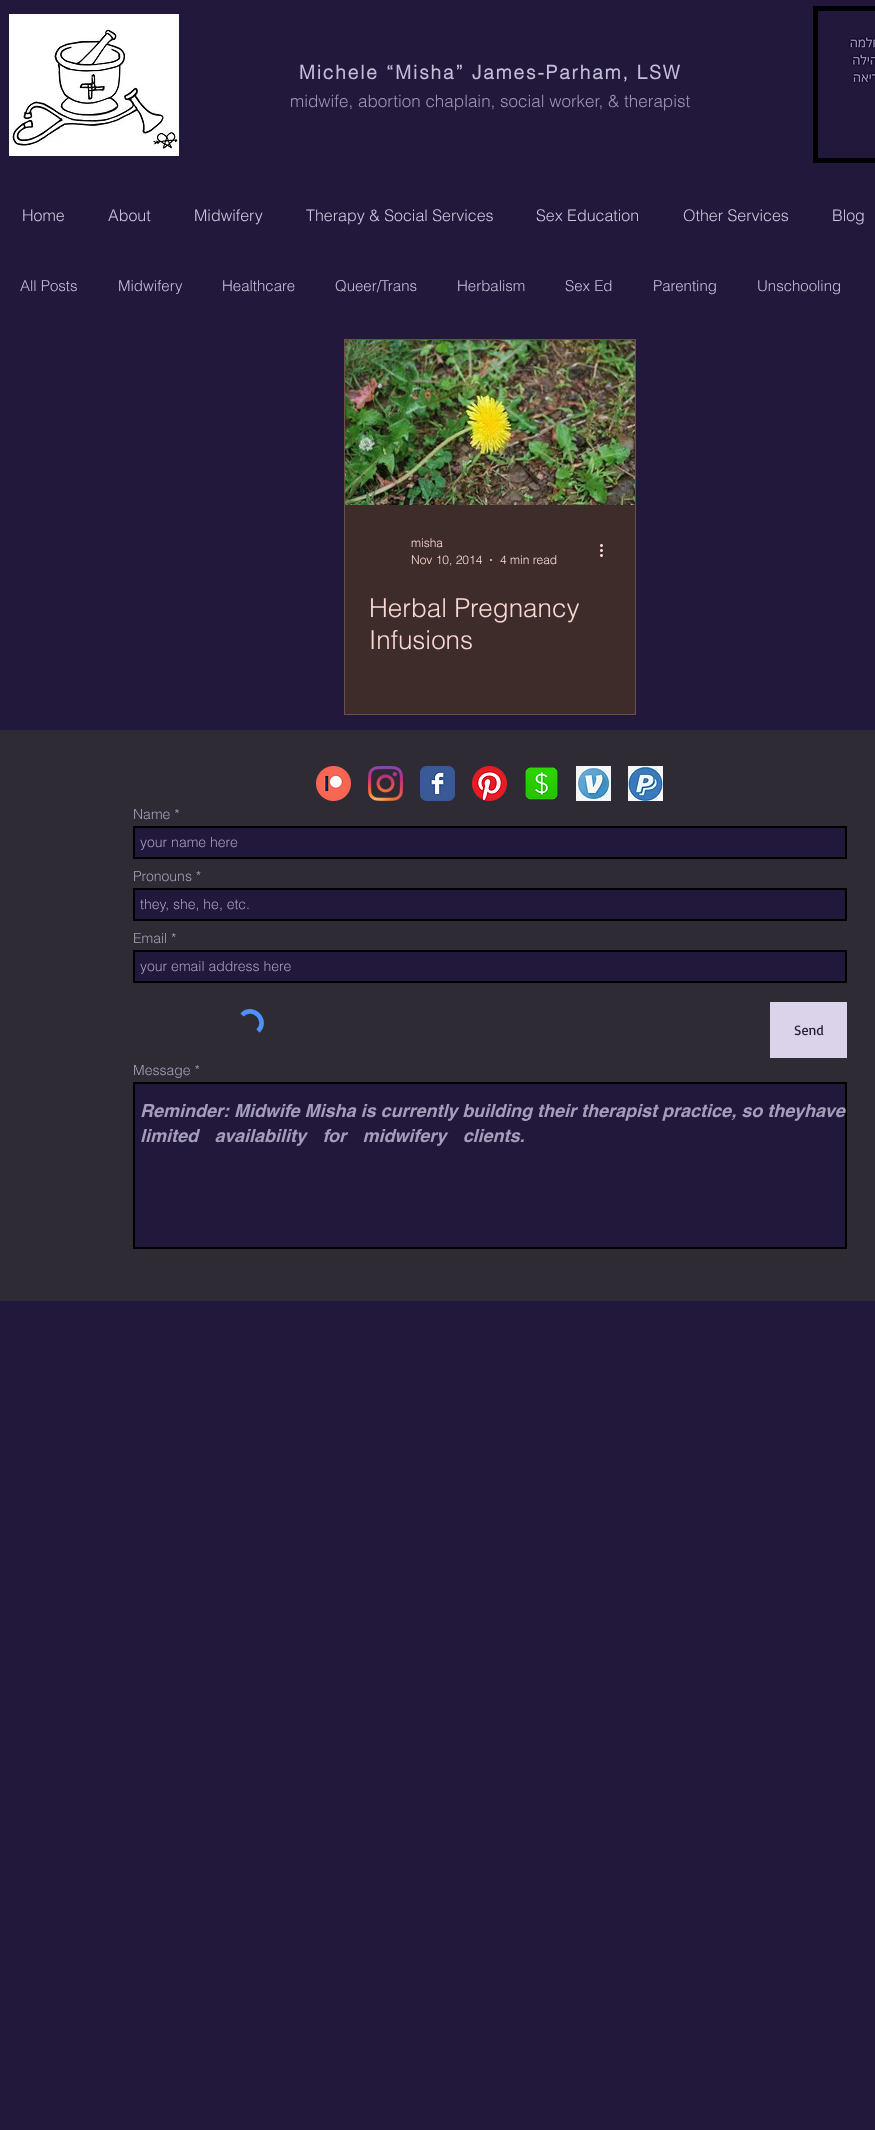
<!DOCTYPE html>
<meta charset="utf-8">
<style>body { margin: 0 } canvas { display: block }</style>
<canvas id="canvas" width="875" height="2130"></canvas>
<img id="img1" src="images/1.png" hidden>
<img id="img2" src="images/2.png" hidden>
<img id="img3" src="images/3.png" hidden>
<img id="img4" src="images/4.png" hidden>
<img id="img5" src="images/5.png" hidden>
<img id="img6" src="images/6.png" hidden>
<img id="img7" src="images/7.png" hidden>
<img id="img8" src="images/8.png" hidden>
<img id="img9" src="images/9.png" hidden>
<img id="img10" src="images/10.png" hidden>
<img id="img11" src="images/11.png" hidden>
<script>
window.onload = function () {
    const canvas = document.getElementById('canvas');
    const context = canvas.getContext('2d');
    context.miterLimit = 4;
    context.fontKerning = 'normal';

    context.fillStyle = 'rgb(33, 24, 59)';
    context.fillRect(0, 0, 875, 2130);
    context.drawImage(document.getElementById('img1'), 9, 14, 170, 142);
    context.fillStyle = 'rgb(0, 0, 0)';
    context.fillRect(813, 6, 62, 157);
    context.drawImage(document.getElementById('img2'), 818, 11, 57, 147);
    context.fillStyle = 'rgb(61, 44, 42)';
    context.fillRect(345, 505, 290, 209);
    context.strokeStyle = 'rgb(108, 78, 74)';
    context.strokeRect(344.5, 339.5, 291, 375);
    context.drawImage(document.getElementById('img3'), 345, 340, 290, 165);
    context.fillStyle = 'rgb(251, 216, 212)';
    context.beginPath();
    context.arc(491, 560, 1, 0, 2 * Math.PI);
    context.fill();
    context.drawImage(document.getElementById('img4'), 600, 544, 3, 13);
    context.fillStyle = 'rgb(46, 43, 53)';
    context.fillRect(0, 730, 875, 571);
    context.drawImage(document.getElementById('img5'), 316, 766, 35, 35);
    context.drawImage(document.getElementById('img6'), 368, 766, 35, 35);
    context.drawImage(document.getElementById('img7'), 420, 766, 35, 35);
    context.drawImage(document.getElementById('img8'), 472, 766, 35, 35);
    context.drawImage(document.getElementById('img9'), 525, 767, 33, 33);
    context.drawImage(document.getElementById('img10'), 576, 766, 35, 35);
    context.drawImage(document.getElementById('img11'), 628, 766, 35, 35);
    context.fillStyle = 'rgb(33, 24, 59)';
    context.beginPath();
    context.rect(134, 827, 712, 31);
    context.fill();
    context.strokeStyle = 'rgb(0, 0, 0)';
    context.lineWidth = 2;
    context.stroke();
    context.beginPath();
    context.rect(134, 889, 712, 31);
    context.fill();
    context.stroke();
    context.beginPath();
    context.rect(134, 951, 712, 31);
    context.fill();
    context.stroke();
    context.beginPath();
    context.moveTo(242, 1015);
    context.bezierCurveTo(252.5, 1004, 269, 1020.5, 258, 1031);
    context.strokeStyle = 'rgb(77, 144, 254)';
    context.lineWidth = 4.6;
    context.stroke();
    context.fillStyle = 'rgb(218, 211, 234)';
    context.fillRect(770, 1002, 77, 56);
    context.fillStyle = 'rgb(33, 24, 59)';
    context.beginPath();
    context.rect(134, 1083, 712, 165);
    context.fill();
    context.strokeStyle = 'rgb(0, 0, 0)';
    context.lineWidth = 2;
    context.stroke();
    context.letterSpacing = '1.9px';
    context.font = 'bold 19px helvetica';
    context.fillStyle = 'rgb(197, 190, 216)';
    context.fillText('Michele “Misha” James-Parham, LSW', 299, 79);
    context.letterSpacing = '0px';
    context.font = '300 17px helvetica';
    context.fillStyle = 'rgb(157, 150, 177)';
    context.fillText('midwife, abortion chaplain, social worker, & therapist', 290, 107);
    context.font = '300 16px helvetica';
    context.fillStyle = 'rgb(204, 198, 221)';
    context.fillText('Home', 22, 221);
    context.fillText('About', 108, 221);
    context.fillText('Midwifery', 194, 221);
    context.fillText('Therapy & Social Services', 306, 221);
    context.fillText('Sex Education', 536, 221);
    context.fillText('Other Services', 683, 221);
    context.fillText('Blog', 832, 221);
    context.font = '300 15px helvetica';
    context.fillStyle = 'rgb(197, 190, 216)';
    context.fillText('All Posts', 20, 291);
    context.fillText('Midwifery', 118, 291);
    context.fillText('Healthcare', 222, 291);
    context.fillText('Queer/Trans', 335, 291);
    context.fillText('Herbalism', 457, 291);
    context.fillText('Sex Ed', 565, 291);
    context.fillText('Parenting', 653, 291);
    context.fillText('Unschooling', 757, 291);
    context.font = '300 12px helvetica';
    context.fillStyle = 'rgb(251, 216, 212)';
    context.fillText('misha', 411, 547);
    context.fillText('Nov 10, 2014', 411, 564);
    context.fillText('4 min read', 500, 564);
    context.font = '300 26px helvetica';
    context.fillText('Herbal Pregnancy', 369, 617);
    context.fillText('Infusions', 369, 649);
    context.font = '300 14px helvetica';
    context.fillStyle = 'rgb(165, 158, 186)';
    context.fillText('Name *', 133, 819);
    context.fillText('your name here', 140, 847);
    context.fillText('Pronouns *', 133, 881);
    context.fillText('they, she, he, etc.', 140, 909);
    context.fillText('Email *', 133, 943);
    context.fillText('your email address here', 140, 971);
    context.font = '14px Basic';
    context.fillStyle = 'rgb(39, 35, 51)';
    context.fillText('Send', 794, 1035);
    context.font = '300 14px helvetica';
    context.fillStyle = 'rgb(165, 158, 186)';
    context.fillText('Message *', 133, 1075);
    context.font = 'italic bold 18px helvetica';
    context.fillText('Reminder: Midwife Misha is currently building their therapist practice, so theyhave', 140, 1117);
    context.wordSpacing = '11.5px';
    context.fillText('limited availability for midwifery clients.', 140, 1142);
};
</script>
